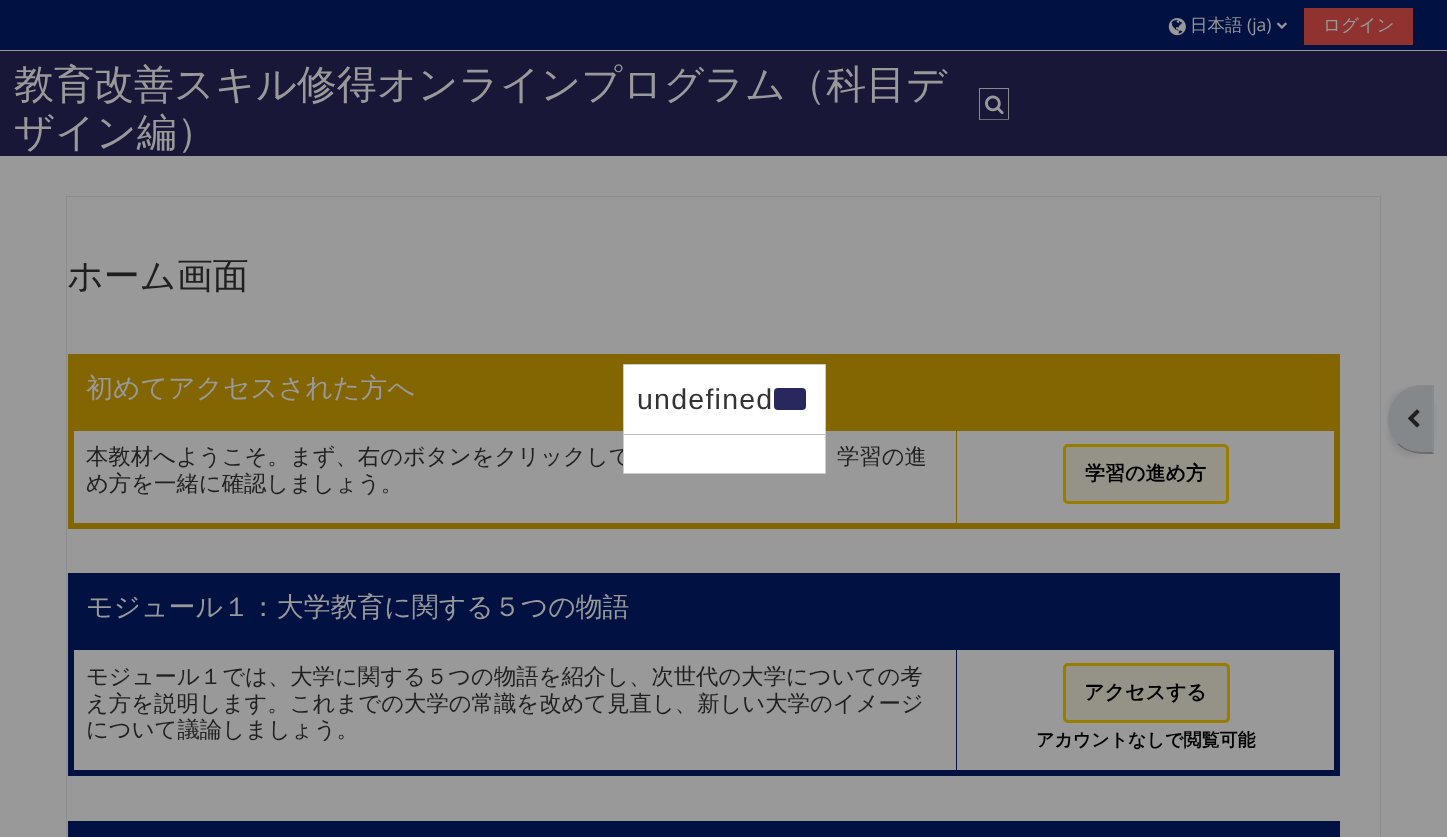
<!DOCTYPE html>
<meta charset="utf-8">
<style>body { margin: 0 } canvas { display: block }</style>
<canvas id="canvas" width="1447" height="837"></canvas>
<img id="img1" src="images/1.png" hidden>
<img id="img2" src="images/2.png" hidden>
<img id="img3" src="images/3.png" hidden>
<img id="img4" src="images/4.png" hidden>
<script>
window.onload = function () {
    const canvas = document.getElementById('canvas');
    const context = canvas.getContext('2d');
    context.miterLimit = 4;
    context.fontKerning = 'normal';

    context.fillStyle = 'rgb(153, 153, 153)';
    context.fillRect(0, 0, 1447, 837);
    context.fillStyle = 'rgb(24, 23, 56)';
    context.fillRect(0, 51, 1447, 105);
    context.fillStyle = 'rgb(1, 17, 66)';
    context.fillRect(0, 0, 1447, 50);
    context.drawImage(document.getElementById('img1'), 1168, 18, 18, 18);
    context.drawImage(document.getElementById('img2'), 1276, 22, 11, 7);
    context.fillStyle = 'rgb(143, 50, 48)';
    context.fillRect(1304, 8, 109, 37);
    context.fillStyle = 'rgb(138, 138, 138)';
    context.fillRect(979, 88, 30, 1);
    context.fillRect(1008, 88, 1, 32);
    context.fillStyle = 'rgb(107, 107, 107)';
    context.fillRect(979, 119, 30, 1);
    context.fillStyle = 'rgb(138, 138, 138)';
    context.fillRect(979, 88, 1, 32);
    context.drawImage(document.getElementById('img3'), 985, 95, 19, 20);
    context.strokeStyle = 'rgb(139, 140, 141)';
    context.strokeRect(66.5, 196.5, 1314, 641);
    context.fillStyle = 'rgb(131, 101, 1)';
    context.fillRect(68, 354, 1272, 6);
    context.fillRect(1334, 354, 6, 175);
    context.fillRect(74, 360, 1260, 71);
    context.fillRect(956, 430, 1, 96);
    context.fillRect(68, 523, 1272, 6);
    context.fillRect(68, 354, 6, 175);
    context.fillStyle = 'rgb(149, 147, 136)';
    context.beginPath();
    context.roundRect(1064.5, 445.5, 163, 57, 3.5);
    context.fill();
    context.strokeStyle = 'rgb(152, 125, 0)';
    context.lineWidth = 3;
    context.stroke();
    context.fillStyle = 'rgb(1, 17, 66)';
    context.fillRect(68, 573, 1272, 6);
    context.fillRect(1334, 573, 6, 203);
    context.fillRect(74, 579, 1260, 71);
    context.fillRect(956, 649, 1, 125);
    context.fillRect(68, 770, 1272, 6);
    context.fillRect(68, 573, 6, 203);
    context.fillStyle = 'rgb(149, 147, 136)';
    context.beginPath();
    context.roundRect(1064.5, 664.5, 164, 57, 3.5);
    context.fill();
    context.stroke();
    context.fillStyle = 'rgb(1, 17, 66)';
    context.fillRect(68, 821, 1272, 7);
    context.fillRect(1334, 821, 6, 16);
    context.fillRect(68, 821, 6, 16);
    context.fillRect(74, 828, 1260, 9);
    context.fillStyle = 'rgba(0, 0, 0, 0.07)';
    context.filter = 'blur(2.5px)';
    context.beginPath();
    context.roundRect(1388, 388, 46, 68, 34);
    context.fill();
    context.filter = 'none';
    context.fillStyle = 'rgb(133, 136, 138)';
    context.beginPath();
    context.roundRect(1388, 385, 46, 69, [34, 0, 0, 34]);
    context.fill();
    context.fillStyle = 'rgb(138, 138, 138)';
    context.beginPath();
    context.moveTo(1422, 385);
    context.bezierCurveTo(1411.5, 385, 1403.5, 389, 1397.5, 395);
    context.lineTo(1398.5, 396);
    context.bezierCurveTo(1408, 385.5, 1419, 386, 1432, 386);
    context.lineTo(1432, 387);
    context.lineTo(1434, 385);
    context.closePath();
    context.fill();
    context.beginPath();
    context.moveTo(1434, 385);
    context.lineTo(1432, 387);
    context.lineTo(1432, 452);
    context.lineTo(1434, 454);
    context.closePath();
    context.fill();
    context.fillStyle = 'rgb(107, 107, 107)';
    context.beginPath();
    context.moveTo(1434, 454);
    context.bezierCurveTo(1420.5, 454, 1407.5, 454, 1397, 444);
    context.lineTo(1398.5, 443);
    context.bezierCurveTo(1408.5, 453, 1418.5, 452, 1432, 452);
    context.closePath();
    context.fill();
    context.fillStyle = 'rgb(138, 138, 138)';
    context.beginPath();
    context.moveTo(1398, 395);
    context.bezierCurveTo(1385, 408, 1384, 431, 1397, 444);
    context.lineTo(1398, 443);
    context.bezierCurveTo(1385, 430, 1386, 408, 1398, 396);
    context.closePath();
    context.fill();
    context.drawImage(document.getElementById('img4'), 1408, 409, 12, 19);
    context.font = '500 17.5px WenQuanYi Zen Hei';
    context.fillStyle = 'rgb(153, 153, 153)';
    context.fillText('日本語', 1190, 31);
    context.font = '17.5px Open Sans';
    context.fillText('(ja)', 1247, 31);
    context.font = '500 17.5px WenQuanYi Zen Hei';
    context.fillText('ログイン', 1323, 31);
    context.font = '500 40px WenQuanYi Zen Hei';
    context.fillText('教育改善スキル修得オンラインプログラム（科目デ', 14, 98);
    context.fillText('ザイン編）', 14, 146);
    context.font = '500 36px WenQuanYi Zen Hei';
    context.fillStyle = 'rgb(31, 31, 31)';
    context.fillText('ホーム画面', 67, 288);
    context.font = '500 26.9px WenQuanYi Zen Hei';
    context.fillStyle = 'rgb(153, 153, 153)';
    context.fillText('初めてアクセスされた方へ', 86, 397);
    context.font = '500 22.35px WenQuanYi Zen Hei';
    context.fillStyle = 'rgb(31, 31, 31)';
    context.fillText('本教材へようこそ。まず、右のボタンをクリックして', 86, 464);
    context.fillText('学習の進', 837, 464);
    context.fillText('め方を一緒に確認しましょう。', 86, 491);
    context.font = 'bold 20px WenQuanYi Zen Hei';
    context.fillStyle = 'rgb(0, 0, 0)';
    context.fillText('学習の進め方', 1085, 480);
    context.font = '500 26.9px WenQuanYi Zen Hei';
    context.fillStyle = 'rgb(153, 153, 153)';
    context.fillText('モジュール１：大学教育に関する５つの物語', 86, 616);
    context.font = '500 22.35px WenQuanYi Zen Hei';
    context.fillStyle = 'rgb(31, 31, 31)';
    context.fillText('モジュール１では、大学に関する５つの物語を紹介し、次世代の大学についての考', 86, 684);
    context.fillText('え方を説明します。これまでの大学の常識を改めて見直し、新しい大学のイメージ', 86, 711);
    context.fillText('について議論しましょう。', 86, 737);
    context.font = 'bold 20px WenQuanYi Zen Hei';
    context.fillStyle = 'rgb(0, 0, 0)';
    context.fillText('アクセスする', 1084, 699);
    context.font = 'bold 18px WenQuanYi Zen Hei';
    context.fillText('アカウントなしで閲覧可能', 1036, 746);
    context.fillStyle = 'rgb(255, 255, 255)';
    context.beginPath();
    context.rect(623.5, 364.5, 202, 109);
    context.fill();
    context.strokeStyle = 'rgb(204, 204, 204)';
    context.lineWidth = 1;
    context.stroke();
    context.fillStyle = 'rgb(187, 187, 187)';
    context.fillRect(624, 434, 201, 1);
    context.letterSpacing = '1.25px';
    context.font = '28.5px Liberation Sans';
    context.fillStyle = 'rgb(51, 51, 51)';
    context.fillText('undefined', 637, 409);
    context.fillStyle = 'rgb(40, 39, 94)';
    context.beginPath();
    context.roundRect(774, 388, 32, 22, 4);
    context.fill();
};
</script>
